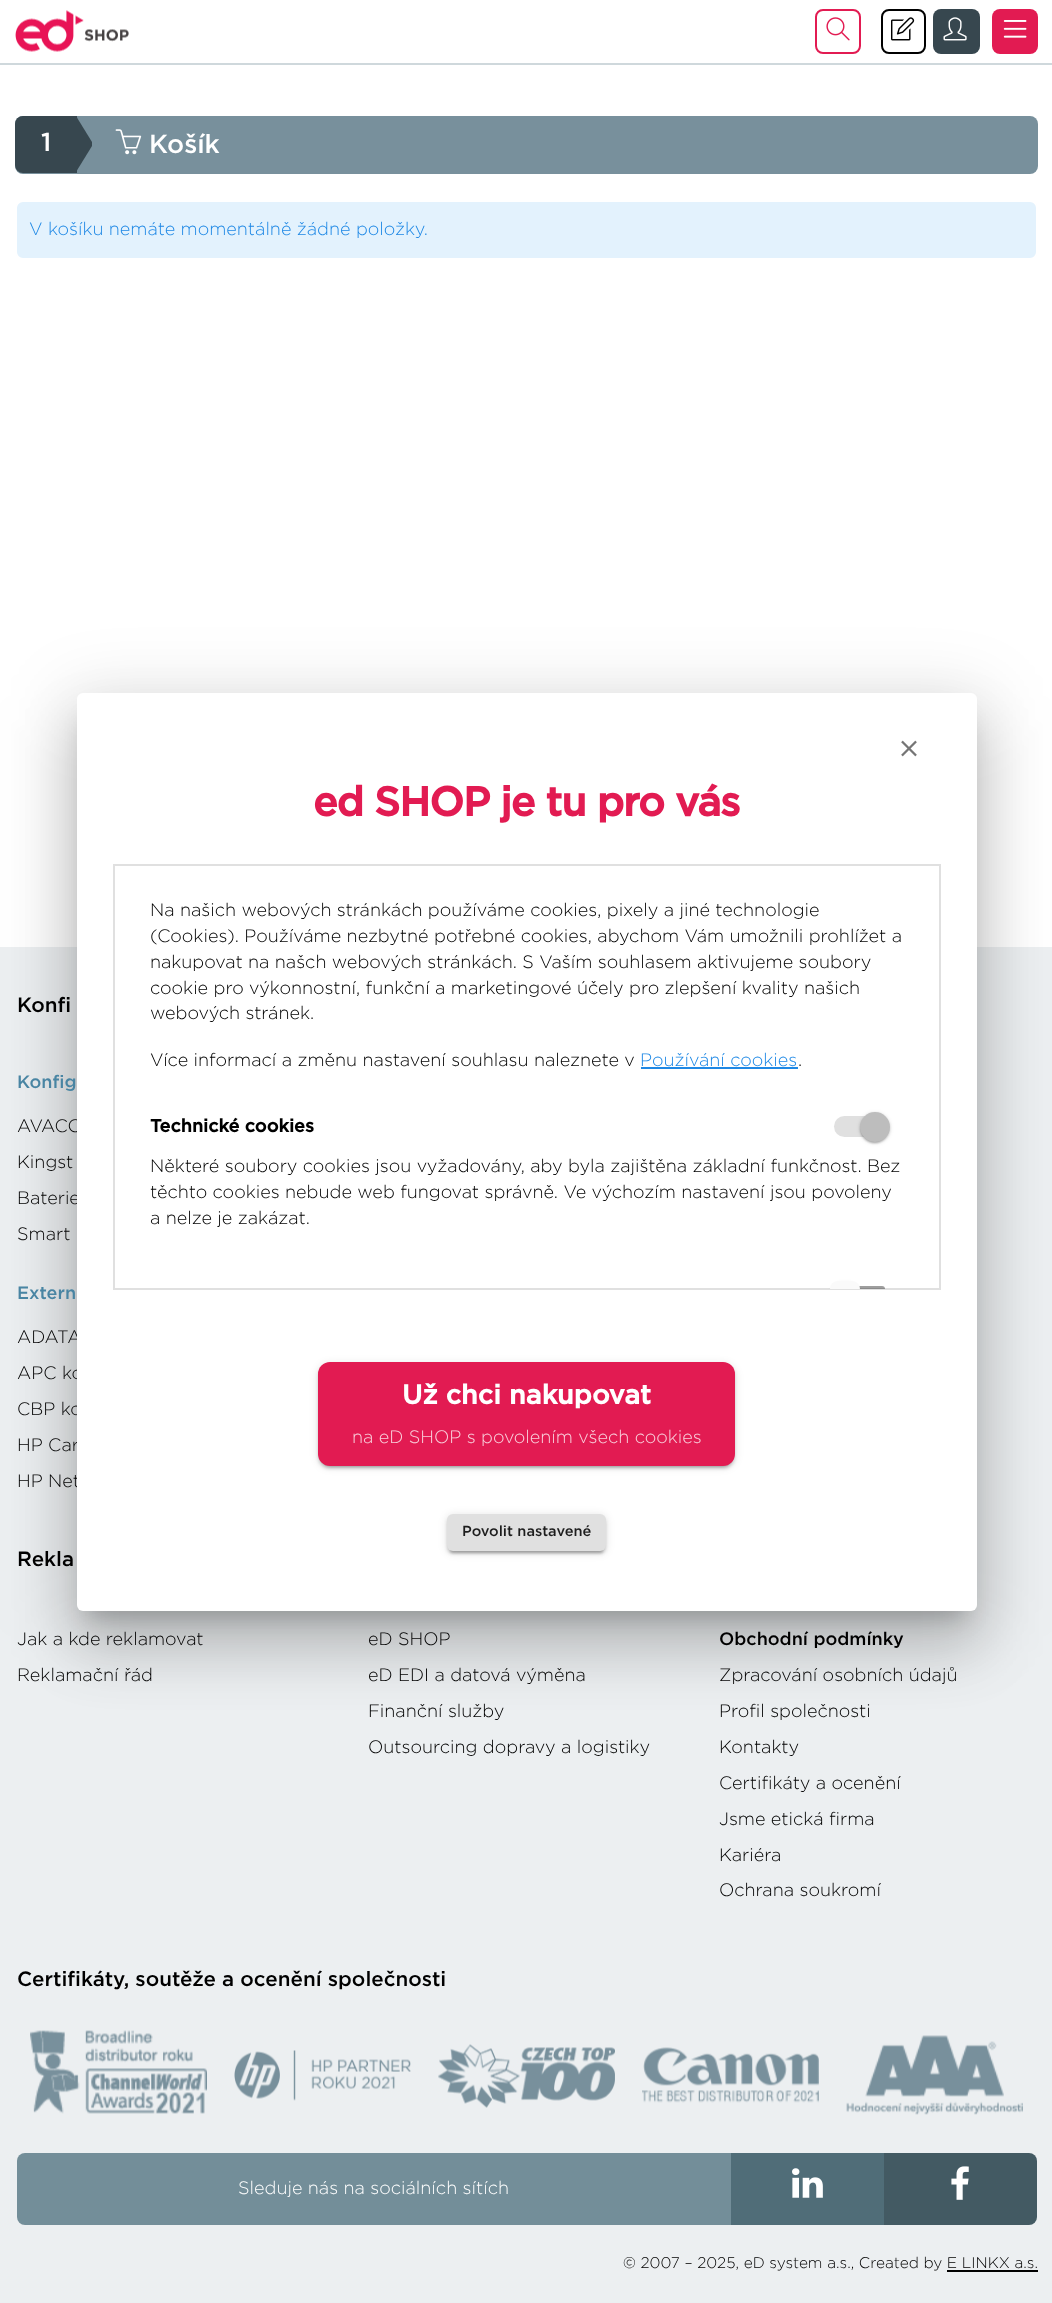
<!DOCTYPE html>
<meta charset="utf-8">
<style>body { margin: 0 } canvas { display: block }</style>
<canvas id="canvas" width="1052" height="2303"></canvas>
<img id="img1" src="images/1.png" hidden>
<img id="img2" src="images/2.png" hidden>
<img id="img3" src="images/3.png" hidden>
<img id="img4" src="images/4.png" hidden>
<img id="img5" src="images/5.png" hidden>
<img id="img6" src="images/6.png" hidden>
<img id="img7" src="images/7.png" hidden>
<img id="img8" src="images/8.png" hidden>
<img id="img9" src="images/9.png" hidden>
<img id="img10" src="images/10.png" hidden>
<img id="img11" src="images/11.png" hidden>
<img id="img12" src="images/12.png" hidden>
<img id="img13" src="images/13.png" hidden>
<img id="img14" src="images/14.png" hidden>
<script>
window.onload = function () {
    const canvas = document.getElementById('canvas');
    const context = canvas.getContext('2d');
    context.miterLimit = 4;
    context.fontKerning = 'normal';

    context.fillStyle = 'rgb(255, 255, 255)';
    context.fillRect(0, 0, 1052, 2303);
    context.fillStyle = 'rgb(207, 216, 220)';
    context.fillRect(0, 63, 1052, 2);
    context.drawImage(document.getElementById('img1'), 15, 10, 114, 42);
    context.beginPath();
    context.roundRect(816, 10, 44, 43, 7);
    context.strokeStyle = 'rgb(226, 27, 82)';
    context.lineWidth = 2;
    context.stroke();
    context.drawImage(document.getElementById('img2'), 826, 17, 24, 24);
    context.beginPath();
    context.roundRect(882, 10, 43, 43, 7);
    context.strokeStyle = 'rgb(0, 0, 0)';
    context.stroke();
    context.drawImage(document.getElementById('img3'), 891, 17, 24, 24);
    context.fillStyle = 'rgb(55, 71, 79)';
    context.beginPath();
    context.roundRect(933, 9, 47, 45, 8);
    context.fill();
    context.drawImage(document.getElementById('img4'), 943, 17, 24, 24);
    context.fillStyle = 'rgb(226, 27, 82)';
    context.beginPath();
    context.roundRect(992, 9, 46, 45, 8);
    context.fill();
    context.drawImage(document.getElementById('img5'), 1003, 20, 24, 18);
    context.fillStyle = 'rgb(120, 144, 156)';
    context.beginPath();
    context.roundRect(15, 116, 1023, 58, 8);
    context.fill();
    context.fillStyle = 'rgb(55, 71, 79)';
    context.beginPath();
    context.roundRect(15, 116, 62, 57, [8, 0, 0, 8]);
    context.fill();
    context.beginPath();
    context.moveTo(76, 172);
    context.lineTo(76, 116);
    context.lineTo(92, 142);
    context.lineTo(92, 146);
    context.closePath();
    context.fill();
    context.drawImage(document.getElementById('img6'), 115, 129, 27, 26);
    context.fillStyle = 'rgb(227, 242, 253)';
    context.beginPath();
    context.roundRect(16, 201, 1021, 58, 7);
    context.fill();
    context.strokeStyle = 'rgb(255, 255, 255)';
    context.stroke();
    context.fillStyle = 'rgb(236, 239, 241)';
    context.fillRect(0, 947, 1052, 1356);
    context.drawImage(document.getElementById('img7'), 30, 2030, 177, 84);
    context.drawImage(document.getElementById('img8'), 234, 2050, 177, 51);
    context.drawImage(document.getElementById('img9'), 438, 2044, 177, 64);
    context.drawImage(document.getElementById('img10'), 642, 2047, 177, 56);
    context.drawImage(document.getElementById('img11'), 846, 2035, 177, 80);
    context.fillStyle = 'rgb(115, 142, 153)';
    context.beginPath();
    context.roundRect(17, 2153, 714, 72, [8, 0, 0, 8]);
    context.fill();
    context.fillStyle = 'rgb(80, 109, 120)';
    context.fillRect(731, 2153, 153, 72);
    context.drawImage(document.getElementById('img12'), 792, 2168, 31, 30);
    context.fillStyle = 'rgb(67, 90, 99)';
    context.beginPath();
    context.roundRect(884, 2153, 153, 72, [0, 8, 8, 0]);
    context.fill();
    context.drawImage(document.getElementById('img13'), 951, 2166, 18, 34);
    context.fillStyle = 'rgb(0, 0, 0)';
    context.fillRect(947, 2270, 91, 2);
    context.fillStyle = 'rgba(0, 0, 0, 0.12)';
    context.filter = 'blur(34.5px)';
    context.beginPath();
    context.roundRect(65, 695, 924, 942, 18);
    context.fill();
    context.filter = 'none';
    context.fillStyle = 'rgba(0, 0, 0, 0.14)';
    context.filter = 'blur(28.5px)';
    context.beginPath();
    context.roundRect(72, 725, 909, 927, 11);
    context.fill();
    context.filter = 'none';
    context.fillStyle = 'rgba(0, 0, 0, 0.2)';
    context.filter = 'blur(11px)';
    context.beginPath();
    context.rect(87, 720, 879, 897);
    context.fill();
    context.filter = 'none';
    context.font = '500 26px Gotham';
    context.fillStyle = 'rgb(255, 255, 255)';
    context.fillText('1', 41, 151);
    context.fillText('Košík', 149, 153);
    context.font = '300 18px Gotham';
    context.fillStyle = 'rgb(30, 136, 229)';
    context.fillText('V košíku nemáte momentálně žádné položky.', 29, 235);
    context.font = '500 20.6px Gotham';
    context.fillStyle = 'rgb(0, 0, 0)';
    context.fillText('Konfi', 17, 1012);
    context.font = '500 18px Gotham';
    context.fillStyle = 'rgb(73, 133, 163)';
    context.fillText('Konfig', 17, 1088);
    context.font = '300 18px Gotham';
    context.fillStyle = 'rgb(0, 0, 0)';
    context.fillText('AVACO', 17, 1132);
    context.fillText('Kingst', 17, 1168);
    context.fillText('Baterie', 17, 1204);
    context.fillText('Smart', 17, 1240);
    context.font = '500 18px Gotham';
    context.fillStyle = 'rgb(73, 133, 163)';
    context.fillText('Extern', 17, 1299);
    context.font = '300 18px Gotham';
    context.fillStyle = 'rgb(0, 0, 0)';
    context.fillText('ADATA', 17, 1343);
    context.fillText('APC ko', 17, 1379);
    context.fillText('CBP ko', 17, 1415);
    context.fillText('HP Car', 17, 1451);
    context.fillText('HP Net', 17, 1487);
    context.font = '500 20.6px Gotham';
    context.fillText('Rekla', 17, 1566);
    context.font = '300 18px Gotham';
    context.fillText('Jak a kde reklamovat', 17, 1645);
    context.fillText('Reklamační řád', 17, 1681);
    context.fillText('eD SHOP', 368, 1645);
    context.fillText('eD EDI a datová výměna', 368, 1681);
    context.fillText('Finanční služby', 368, 1717);
    context.fillText('Outsourcing dopravy a logistiky', 368, 1753);
    context.font = '500 18px Gotham';
    context.fillText('Obchodní podmínky', 719, 1645);
    context.font = '300 18px Gotham';
    context.fillText('Zpracování osobních údajů', 719, 1681);
    context.fillText('Profil společnosti', 719, 1717);
    context.fillText('Kontakty', 719, 1753);
    context.fillText('Certifikáty a ocenění', 719, 1789);
    context.fillText('Jsme etická firma', 719, 1825);
    context.fillText('Kariéra', 719, 1861);
    context.fillText('Ochrana soukromí', 719, 1896);
    context.font = '500 20.6px Gotham';
    context.fillText('Certifikáty, soutěže a ocenění společnosti', 17, 1986);
    context.font = '300 18px Gotham';
    context.fillStyle = 'rgb(255, 255, 255)';
    context.fillText('Sleduje nás na sociálních sítích', 238, 2194);
    context.font = '300 15.4px Gotham';
    context.fillStyle = 'rgb(0, 0, 0)';
    context.fillText('© 2007 – 2025, eD system a.s., Created by E LINKX a.s.', 623, 2268);
    context.fillStyle = 'rgb(255, 255, 255)';
    context.beginPath();
    context.roundRect(77, 693, 900, 918, 6);
    context.fill();
    context.drawImage(document.getElementById('img14'), 901, 740, 16, 17);
    context.letterSpacing = '-1.2px';
    context.font = 'bold 41.1px Gotham';
    context.fillStyle = 'rgb(226, 27, 82)';
    context.fillText('ed SHOP je tu pro vás', 313, 816);
    context.strokeStyle = 'rgb(224, 224, 224)';
    context.strokeRect(114, 865, 826, 424);
    context.letterSpacing = '0px';
    context.font = '300 18px Gotham';
    context.fillStyle = 'rgb(0, 0, 0)';
    context.fillText('Na našich webových stránkách používáme cookies, pixely a jiné technologie', 150, 916);
    context.fillText('(Cookies). Používáme nezbytné potřebné cookies, abychom Vám umožnili prohlížet a', 150, 942);
    context.fillText('nakupovat na našch webových stránkách. S Vaším souhlasem aktivujeme soubory', 150, 968);
    context.fillText('cookie pro výkonnostní, funkční a marketingové účely pro zlepšení kvality našich', 150, 994);
    context.fillText('webových stránek.', 150, 1019);
    context.fillText('Více informací a změnu nastavení souhlasu naleznete v', 150, 1066);
    context.fillStyle = 'rgb(30, 136, 229)';
    context.fillText('Používání cookies', 640, 1066);
    context.fillRect(641, 1067, 157, 2);
    context.fillStyle = 'rgb(0, 0, 0)';
    context.fillText('.', 798, 1066);
    context.font = 'bold 18px Gotham';
    context.fillText('Technické cookies', 150, 1132);
    context.fillStyle = 'rgb(224, 224, 224)';
    context.beginPath();
    context.roundRect(834, 1116, 51, 21, 10.5);
    context.fill();
    context.fillStyle = 'rgba(0, 0, 0, 0.2)';
    context.filter = 'blur(1px)';
    context.beginPath();
    context.roundRect(861, 1116, 27, 27, 13.5);
    context.fill();
    context.filter = 'none';
    context.fillStyle = 'rgba(0, 0, 0, 0.14)';
    context.filter = 'blur(1px)';
    context.beginPath();
    context.roundRect(860, 1113, 30, 30, 15);
    context.fill();
    context.filter = 'none';
    context.fillStyle = 'rgba(0, 0, 0, 0.12)';
    context.filter = 'blur(2px)';
    context.beginPath();
    context.roundRect(860, 1113, 30, 30, 15);
    context.fill();
    context.filter = 'none';
    context.fillStyle = 'rgb(189, 189, 189)';
    context.beginPath();
    context.arc(875, 1127, 15, 0, 2 * Math.PI);
    context.fill();
    context.font = '300 18px Gotham';
    context.fillStyle = 'rgb(0, 0, 0)';
    context.fillText('Některé soubory cookies jsou vyžadovány, aby byla zajištěna základní funkčnost. Bez', 150, 1172);
    context.fillText('těchto cookies nebude web fungovat správně. Ve výchozím nastavení jsou povoleny', 150, 1198);
    context.fillText('a nelze je zakázat.', 150, 1224);
    context.fillStyle = 'rgba(0, 0, 0, 0.38)';
    context.beginPath();
    context.roundRect(834, 1286, 51, 3, [10.5, 10.5, 0, 0]);
    context.fill();
    context.save();
    context.beginPath();
    context.rect(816, 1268, 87, 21);
    context.clip();
    context.fillStyle = 'rgba(0, 0, 0, 0.12)';
    context.filter = 'blur(2px)';
    context.beginPath();
    context.roundRect(830, 1283, 30, 30, 15);
    context.fill();
    context.filter = 'none';
    context.restore();
    context.fillStyle = 'rgb(250, 250, 250)';
    context.beginPath();
    context.roundRect(830, 1281, 30, 8, [15, 15, 0, 0]);
    context.fill();
    context.fillStyle = 'rgba(0, 0, 0, 0.12)';
    context.filter = 'blur(4px)';
    context.beginPath();
    context.roundRect(318, 1364, 417, 103, 12);
    context.fill();
    context.filter = 'none';
    context.fillStyle = 'rgba(0, 0, 0, 0.14)';
    context.filter = 'blur(1.5px)';
    context.beginPath();
    context.roundRect(318, 1365, 417, 104, 12);
    context.fill();
    context.filter = 'none';
    context.fillStyle = 'rgba(0, 0, 0, 0.2)';
    context.filter = 'blur(1px)';
    context.beginPath();
    context.roundRect(321, 1370, 411, 97, 9);
    context.fill();
    context.filter = 'none';
    context.fillStyle = 'rgb(226, 27, 82)';
    context.beginPath();
    context.roundRect(318, 1362, 417, 104, 12);
    context.fill();
    context.font = 'bold 27px Gotham';
    context.fillStyle = 'rgb(255, 255, 255)';
    context.fillText('Už chci nakupovat', 402, 1404);
    context.font = '300 18px Gotham';
    context.fillStyle = 'rgb(249, 209, 220)';
    context.fillText('na eD SHOP s povolením všech cookies', 352, 1443);
    context.fillStyle = 'rgba(0, 0, 0, 0.12)';
    context.filter = 'blur(4px)';
    context.beginPath();
    context.roundRect(447, 1515, 159, 38, 6);
    context.fill();
    context.filter = 'none';
    context.fillStyle = 'rgba(0, 0, 0, 0.14)';
    context.filter = 'blur(1.5px)';
    context.beginPath();
    context.roundRect(447, 1517, 159, 37, 6);
    context.fill();
    context.filter = 'none';
    context.fillStyle = 'rgba(0, 0, 0, 0.2)';
    context.filter = 'blur(1px)';
    context.beginPath();
    context.roundRect(450, 1521, 153, 32, 3);
    context.fill();
    context.filter = 'none';
    context.fillStyle = 'rgb(224, 224, 224)';
    context.beginPath();
    context.roundRect(447, 1514, 159, 37, 6);
    context.fill();
    context.font = '500 14.6px Gotham';
    context.fillStyle = 'rgb(29, 29, 29)';
    context.fillText('Povolit nastavené', 462, 1536);
};
</script>
